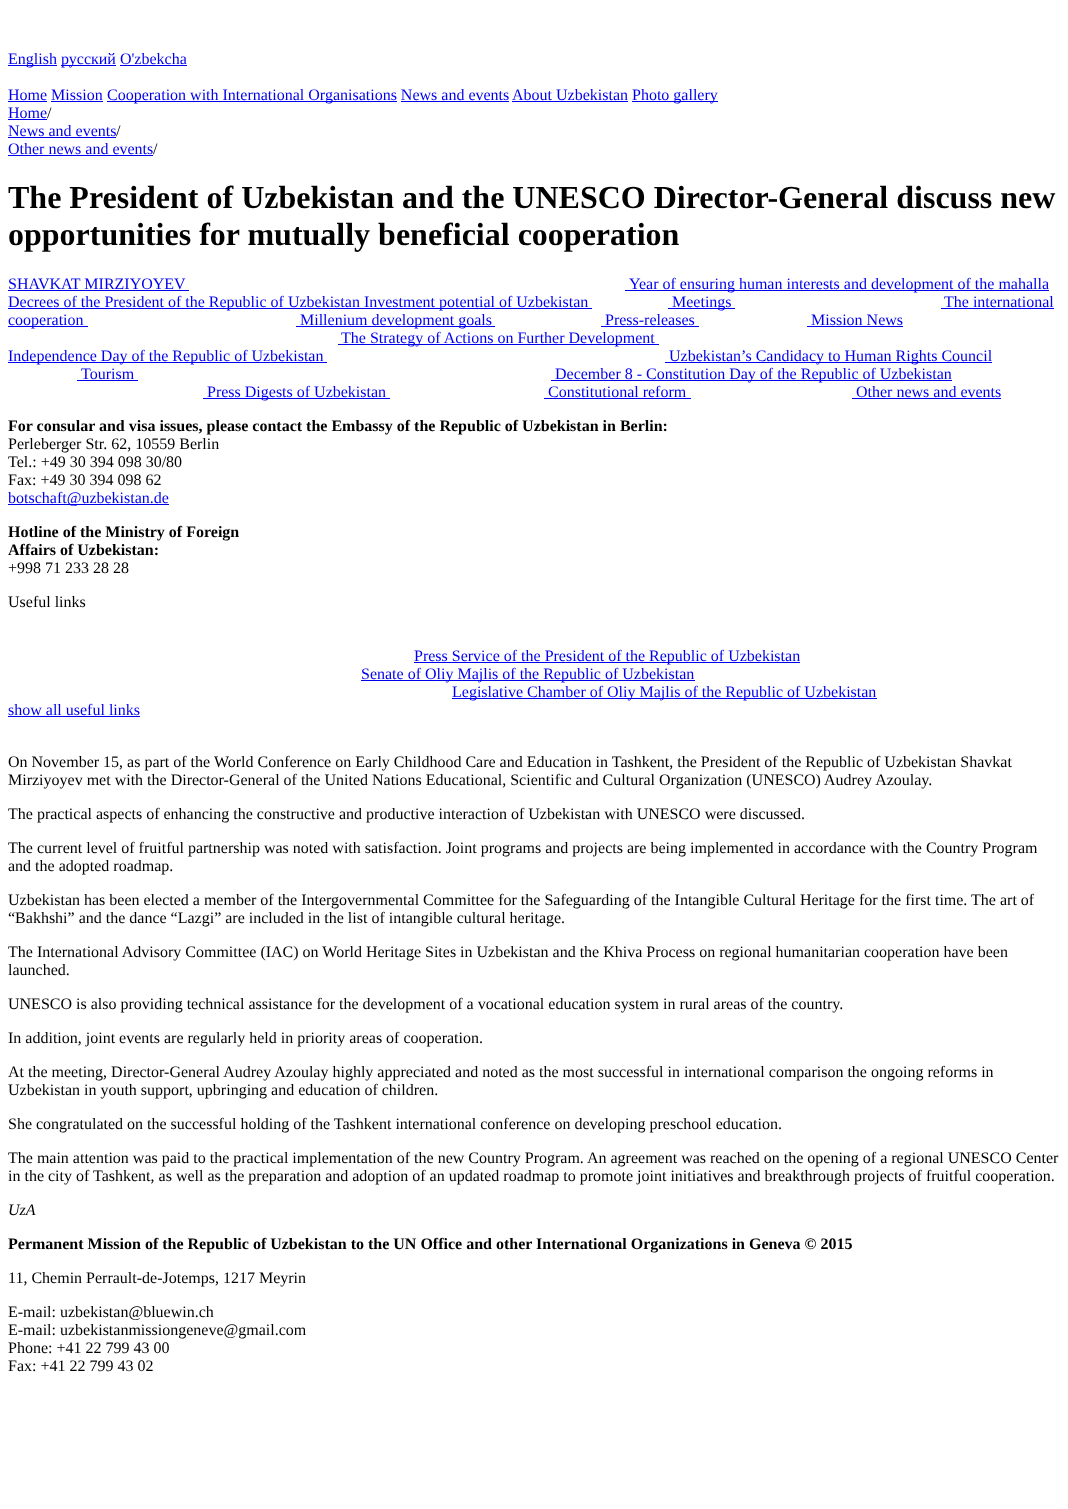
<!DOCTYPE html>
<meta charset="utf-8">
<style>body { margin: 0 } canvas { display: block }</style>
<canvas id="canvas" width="1068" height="1509"></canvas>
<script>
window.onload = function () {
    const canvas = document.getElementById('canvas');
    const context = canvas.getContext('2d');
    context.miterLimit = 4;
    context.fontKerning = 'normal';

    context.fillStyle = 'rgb(255, 255, 255)';
    context.fillRect(0, 0, 1068, 1509);
    context.fillStyle = 'rgb(0, 0, 238)';
    context.fillRect(8, 65, 49, 1);
    context.fillRect(61, 65, 55, 1);
    context.fillRect(120, 65, 67, 1);
    context.fillRect(8, 101, 39, 1);
    context.fillRect(107, 101, 290, 1);
    context.fillRect(512, 101, 116, 1);
    context.fillRect(632, 101, 86, 1);
    context.fillRect(51, 101, 52, 1);
    context.fillRect(401, 101, 108, 1);
    context.fillRect(8, 119, 39, 1);
    context.fillRect(8, 137, 108, 1);
    context.fillRect(8, 155, 145, 1);
    context.fillRect(8, 290, 181, 1);
    context.fillRect(625, 290, 424, 1);
    context.fillRect(8, 308, 584, 1);
    context.fillRect(668, 308, 67, 1);
    context.fillRect(941, 308, 113, 1);
    context.fillRect(8, 326, 80, 1);
    context.fillRect(296, 326, 199, 1);
    context.fillRect(601, 326, 98, 1);
    context.fillRect(807, 326, 96, 1);
    context.fillRect(338, 344, 321, 1);
    context.fillRect(8, 362, 319, 1);
    context.fillRect(665, 362, 327, 1);
    context.fillRect(77, 380, 61, 1);
    context.fillRect(551, 380, 401, 1);
    context.fillRect(203, 398, 187, 1);
    context.fillRect(544, 398, 147, 1);
    context.fillRect(852, 398, 149, 1);
    context.fillRect(8, 504, 161, 1);
    context.fillRect(414, 662, 386, 1);
    context.fillRect(361, 680, 334, 1);
    context.fillRect(452, 698, 425, 1);
    context.fillRect(8, 716, 132, 1);
    context.font = '16px Liberation Serif';
    context.fillText('English', 8, 64);
    context.fillText('русский O\'zbekcha', 61, 64);
    context.fillText('Home Mission', 8, 100);
    context.fillText('Cooperation with International Organisations News and events', 107, 100);
    context.fillText('About Uzbekistan', 512, 100);
    context.fillText('Photo gallery', 632, 100);
    context.fillText('Home', 8, 118);
    context.fillStyle = 'rgb(0, 0, 0)';
    context.fillText('/', 47, 118);
    context.fillStyle = 'rgb(0, 0, 238)';
    context.fillText('News and events', 8, 136);
    context.fillStyle = 'rgb(0, 0, 0)';
    context.fillText('/', 116, 136);
    context.fillStyle = 'rgb(0, 0, 238)';
    context.fillText('Other news and events', 8, 154);
    context.fillStyle = 'rgb(0, 0, 0)';
    context.fillText('/', 153, 154);
    context.font = 'bold 32px Liberation Serif';
    context.fillText('The President of Uzbekistan and the UNESCO Director-General discuss new', 8, 208);
    context.fillText('opportunities for mutually beneficial cooperation', 8, 245);
    context.font = '16px Liberation Serif';
    context.fillStyle = 'rgb(0, 0, 238)';
    context.fillText('SHAVKAT MIRZIYOYEV', 8, 289);
    context.fillText('Year of ensuring human interests and development of the mahalla', 629, 289);
    context.fillText('Decrees of the President of the Republic of Uzbekistan Investment potential of Uzbekistan', 8, 307);
    context.fillText('Meetings', 672, 307);
    context.fillText('The international', 944, 307);
    context.fillText('cooperation', 8, 325);
    context.fillText('Millenium development goals', 300, 325);
    context.fillText('Press-releases', 605, 325);
    context.fillText('Mission News', 811, 325);
    context.fillText('The Strategy of Actions on Further Development', 341, 343);
    context.fillText('Independence Day of the Republic of Uzbekistan', 8, 361);
    context.fillText('Uzbekistan’s Candidacy to Human Rights Council', 669, 361);
    context.fillText('Tourism', 81, 379);
    context.fillText('December 8 - Constitution Day of the Republic of Uzbekistan', 555, 379);
    context.fillText('Press Digests of Uzbekistan', 207, 397);
    context.fillText('Constitutional reform', 548, 397);
    context.fillText('Other news and events', 856, 397);
    context.font = 'bold 16px Liberation Serif';
    context.fillStyle = 'rgb(0, 0, 0)';
    context.fillText('For consular and visa issues, please contact the Embassy of the Republic of Uzbekistan in Berlin:', 8, 431);
    context.font = '16px Liberation Serif';
    context.fillText('Perleberger Str. 62, 10559 Berlin', 8, 449);
    context.fillText('Tel.: +49 30 394 098 30/80', 8, 467);
    context.fillText('Fax: +49 30 394 098 62', 8, 485);
    context.fillStyle = 'rgb(0, 0, 238)';
    context.fillText('botschaft@uzbekistan.de', 8, 503);
    context.font = 'bold 16px Liberation Serif';
    context.fillStyle = 'rgb(0, 0, 0)';
    context.fillText('Hotline of the Ministry of Foreign', 8, 537);
    context.fillText('Affairs of Uzbekistan:', 8, 555);
    context.font = '16px Liberation Serif';
    context.fillText('+998 71 233 28 28', 8, 573);
    context.fillText('Useful links', 8, 607);
    context.fillStyle = 'rgb(0, 0, 238)';
    context.fillText('Press Service of the President of the Republic of Uzbekistan', 414, 661);
    context.fillText('Senate of Oliy Majlis of the Republic of Uzbekistan', 361, 679);
    context.fillText('Legislative Chamber of Oliy Majlis of the Republic of Uzbekistan', 452, 697);
    context.fillText('show all useful links', 8, 715);
    context.fillStyle = 'rgb(0, 0, 0)';
    context.fillText('On November 15, as part of the World Conference on Early Childhood Care and Education in Tashkent, the President of the Republic of Uzbekistan Shavkat', 8, 767);
    context.fillText('Mirziyoyev met with the Director-General of the United Nations Educational, Scientific and Cultural Organization (UNESCO) Audrey Azoulay.', 8, 785);
    context.fillText('The practical aspects of enhancing the constructive and productive interaction of Uzbekistan with UNESCO were discussed.', 8, 819);
    context.fillText('The current level of fruitful partnership was noted with satisfaction. Joint programs and projects are being implemented in accordance with the Country Program', 8, 853);
    context.fillText('and the adopted roadmap.', 8, 871);
    context.fillText('Uzbekistan has been elected a member of the Intergovernmental Committee for the Safeguarding of the Intangible Cultural Heritage for the first time. The art of', 8, 905);
    context.fillText('“Bakhshi” and the dance “Lazgi” are included in the list of intangible cultural heritage.', 8, 923);
    context.fillText('The International Advisory Committee (IAC) on World Heritage Sites in Uzbekistan and the Khiva Process on regional humanitarian cooperation have been', 8, 957);
    context.fillText('launched.', 8, 975);
    context.fillText('UNESCO is also providing technical assistance for the development of a vocational education system in rural areas of the country.', 8, 1009);
    context.fillText('In addition, joint events are regularly held in priority areas of cooperation.', 8, 1043);
    context.fillText('At the meeting, Director-General Audrey Azoulay highly appreciated and noted as the most successful in international comparison the ongoing reforms in', 8, 1077);
    context.fillText('Uzbekistan in youth support, upbringing and education of children.', 8, 1095);
    context.fillText('She congratulated on the successful holding of the Tashkent international conference on developing preschool education.', 8, 1129);
    context.fillText('The main attention was paid to the practical implementation of the new Country Program. An agreement was reached on the opening of a regional UNESCO Center', 8, 1163);
    context.fillText('in the city of Tashkent, as well as the preparation and adoption of an updated roadmap to promote joint initiatives and breakthrough projects of fruitful cooperation.', 8, 1181);
    context.font = 'italic 16px Liberation Serif';
    context.fillText('UzA', 8, 1215);
    context.font = 'bold 16px Liberation Serif';
    context.fillText('Permanent Mission of the Republic of Uzbekistan to the UN Office and other International Organizations in Geneva © 2015', 8, 1249);
    context.font = '16px Liberation Serif';
    context.fillText('11, Chemin Perrault-de-Jotemps, 1217 Meyrin', 8, 1283);
    context.fillText('E-mail: uzbekistan@bluewin.ch', 8, 1317);
    context.fillText('E-mail: uzbekistanmissiongeneve@gmail.com', 8, 1335);
    context.fillText('Phone: +41 22 799 43 00', 8, 1353);
    context.fillText('Fax: +41 22 799 43 02', 8, 1371);
};
</script>
